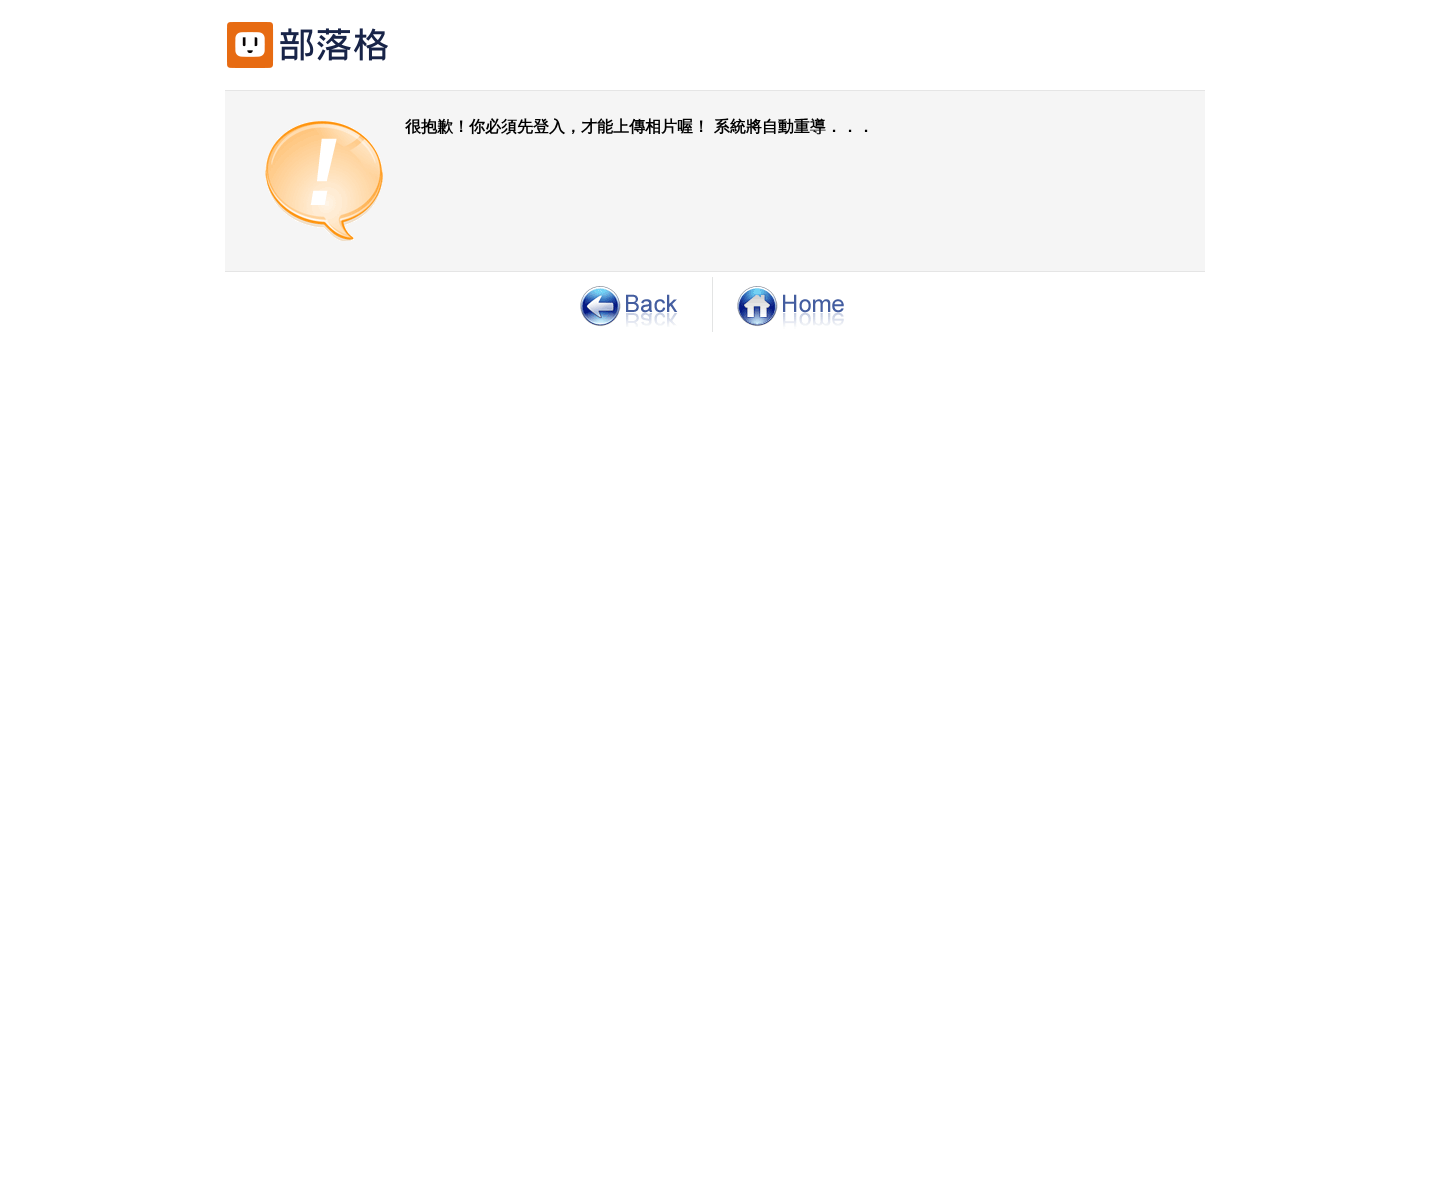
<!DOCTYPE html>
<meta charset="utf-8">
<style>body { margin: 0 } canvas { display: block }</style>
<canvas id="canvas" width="1430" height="1181"></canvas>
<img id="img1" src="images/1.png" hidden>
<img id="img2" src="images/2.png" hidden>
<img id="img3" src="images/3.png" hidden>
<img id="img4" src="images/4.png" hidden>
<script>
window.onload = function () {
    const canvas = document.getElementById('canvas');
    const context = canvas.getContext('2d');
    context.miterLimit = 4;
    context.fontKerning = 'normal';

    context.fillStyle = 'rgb(255, 255, 255)';
    context.fillRect(0, 0, 1430, 1181);
    context.drawImage(document.getElementById('img1'), 227, 22, 161, 46);
    context.fillStyle = 'rgb(245, 245, 245)';
    context.fillRect(225, 91, 980, 180);
    context.drawImage(document.getElementById('img2'), 265, 121, 118, 120);
    context.fillStyle = 'rgb(229, 229, 229)';
    context.fillRect(225, 90, 980, 1);
    context.fillRect(225, 271, 980, 1);
    context.drawImage(document.getElementById('img3'), 580, 286, 98, 41);
    context.drawImage(document.getElementById('img4'), 712, 277, 132, 55);
    context.font = 'bold 16px WenQuanYi Zen Hei';
    context.fillStyle = 'rgb(0, 0, 0)';
    context.fillText('很抱歉！你必須先登入，才能上傳相片喔！ 系統將自動重導．．．', 405, 132);
};
</script>
